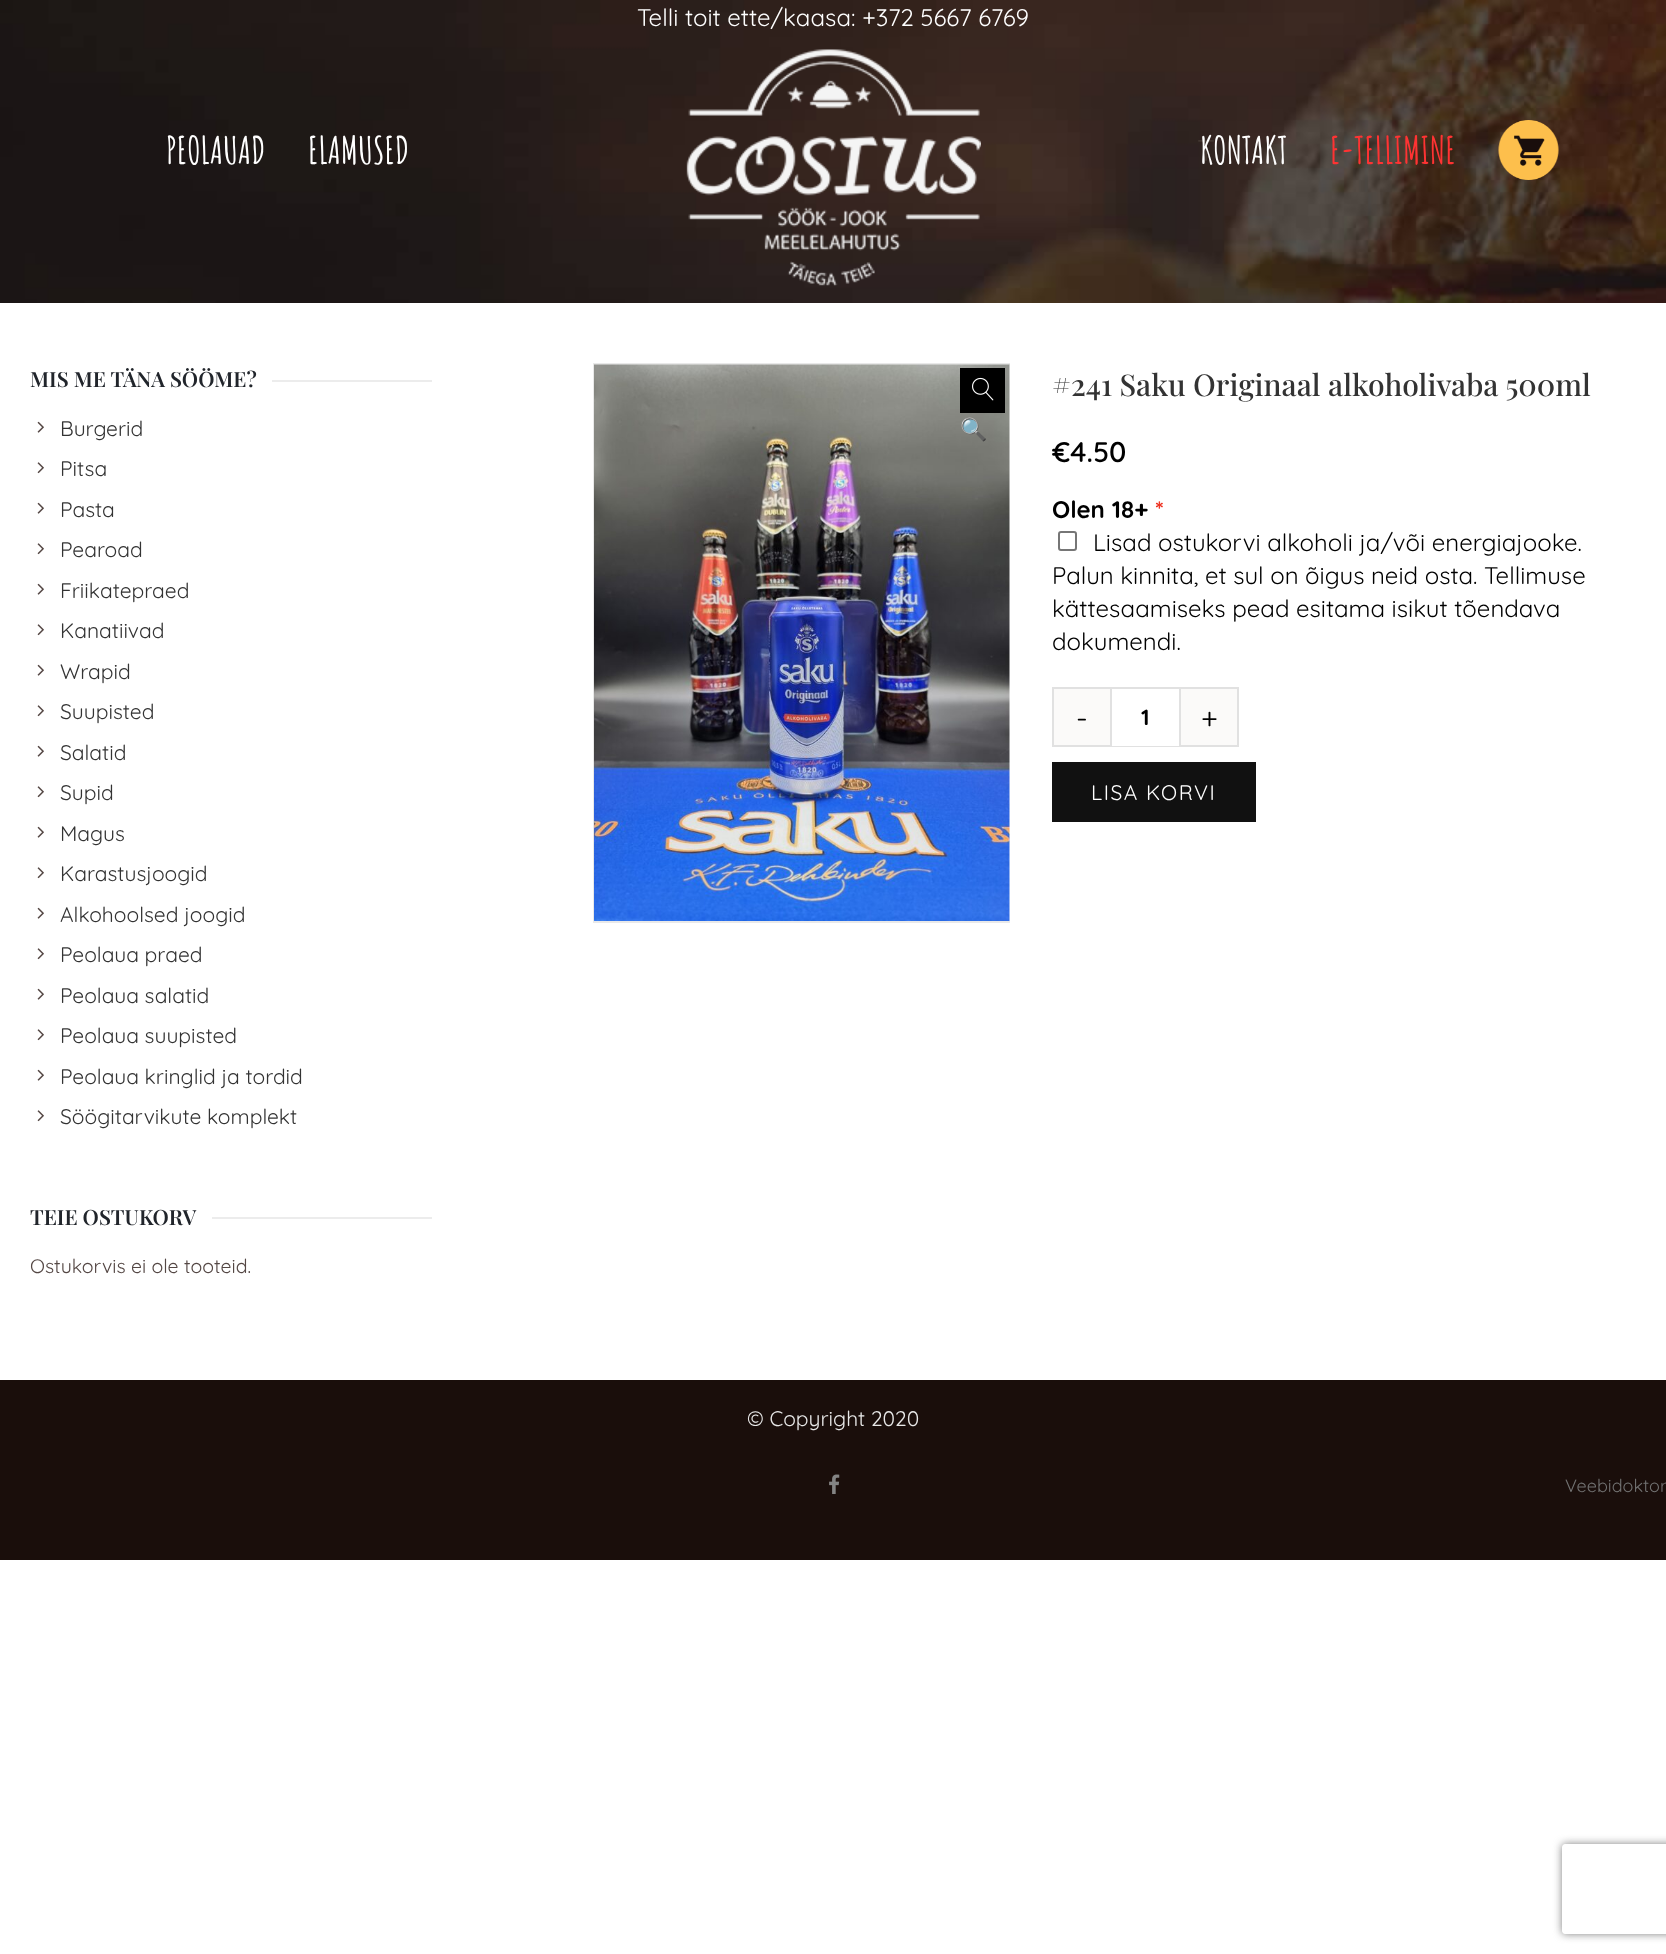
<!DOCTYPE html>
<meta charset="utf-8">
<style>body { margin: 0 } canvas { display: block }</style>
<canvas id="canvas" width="1666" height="1954"></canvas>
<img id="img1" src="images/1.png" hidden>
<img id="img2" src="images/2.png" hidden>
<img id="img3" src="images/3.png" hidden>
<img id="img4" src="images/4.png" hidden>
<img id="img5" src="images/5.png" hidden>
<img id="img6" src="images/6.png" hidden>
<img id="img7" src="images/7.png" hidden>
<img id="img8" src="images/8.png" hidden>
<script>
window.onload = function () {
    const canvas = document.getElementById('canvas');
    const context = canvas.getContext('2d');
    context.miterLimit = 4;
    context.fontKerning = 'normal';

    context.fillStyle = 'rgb(255, 255, 255)';
    context.fillRect(0, 0, 1666, 1954);
    context.drawImage(document.getElementById('img1'), 0, 0, 1666, 303);
    context.drawImage(document.getElementById('img2'), 686, 49, 295, 237);
    context.drawImage(document.getElementById('img3'), 1498, 120, 61, 60);
    context.fillStyle = 'rgb(236, 236, 236)';
    context.fillRect(272, 380, 160, 2);
    context.drawImage(document.getElementById('img4'), 37, 421, 7, 12);
    context.drawImage(document.getElementById('img5'), 37, 462, 7, 12);
    context.drawImage(document.getElementById('img4'), 37, 502, 7, 12);
    context.drawImage(document.getElementById('img5'), 37, 543, 7, 12);
    context.drawImage(document.getElementById('img4'), 37, 583, 7, 12);
    context.drawImage(document.getElementById('img5'), 37, 624, 7, 12);
    context.drawImage(document.getElementById('img4'), 37, 664, 7, 12);
    context.drawImage(document.getElementById('img5'), 37, 705, 7, 12);
    context.drawImage(document.getElementById('img4'), 37, 745, 7, 12);
    context.drawImage(document.getElementById('img5'), 37, 786, 7, 12);
    context.drawImage(document.getElementById('img4'), 37, 826, 7, 12);
    context.drawImage(document.getElementById('img5'), 37, 867, 7, 12);
    context.drawImage(document.getElementById('img4'), 37, 907, 7, 12);
    context.drawImage(document.getElementById('img5'), 37, 948, 7, 12);
    context.drawImage(document.getElementById('img4'), 37, 988, 7, 12);
    context.drawImage(document.getElementById('img5'), 37, 1029, 7, 12);
    context.drawImage(document.getElementById('img4'), 37, 1069, 7, 12);
    context.drawImage(document.getElementById('img5'), 37, 1110, 7, 12);
    context.fillRect(212, 1217, 220, 2);
    context.save();
    context.beginPath();
    context.rect(593, 363, 417, 560);
    context.clip();
    context.strokeStyle = 'rgb(233, 233, 233)';
    context.lineWidth = 2;
    context.strokeRect(594, 364, 418, 558);
    context.restore();
    context.drawImage(document.getElementById('img6'), 594, 364, 416, 557);
    context.fillStyle = 'rgb(0, 0, 0)';
    context.fillRect(960, 368, 45, 45);
    context.drawImage(document.getElementById('img7'), 972, 377, 22, 24);
    context.beginPath();
    context.roundRect(1059, 532, 17, 18, 2);
    context.strokeStyle = 'rgb(118, 118, 118)';
    context.lineWidth = 2;
    context.stroke();
    context.fillStyle = 'rgb(251, 250, 249)';
    context.beginPath();
    context.rect(1053, 688, 58, 58);
    context.fill();
    context.strokeStyle = 'rgb(225, 225, 225)';
    context.stroke();
    context.fillStyle = 'rgb(225, 225, 225)';
    context.fillRect(1112, 687, 67, 2);
    context.fillRect(1112, 746, 67, 1);
    context.fillStyle = 'rgb(251, 250, 249)';
    context.beginPath();
    context.rect(1180, 688, 58, 58);
    context.fill();
    context.stroke();
    context.fillStyle = 'rgb(17, 17, 17)';
    context.fillRect(1052, 762, 204, 60);
    context.fillStyle = 'rgb(26, 14, 11)';
    context.fillRect(0, 1380, 1666, 180);
    context.drawImage(document.getElementById('img8'), 829, 1474, 11, 20);
    context.save();
    context.beginPath();
    context.moveTo(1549, 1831);
    context.lineTo(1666, 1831);
    context.lineTo(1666, 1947);
    context.lineTo(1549, 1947);
    context.closePath();
    context.moveTo(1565, 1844);
    context.lineTo(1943, 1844);
    context.bezierCurveTo(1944.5, 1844, 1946, 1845.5, 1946, 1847);
    context.lineTo(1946, 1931);
    context.bezierCurveTo(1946, 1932.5, 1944.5, 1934, 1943, 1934);
    context.lineTo(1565, 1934);
    context.bezierCurveTo(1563.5, 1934, 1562, 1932.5, 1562, 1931);
    context.lineTo(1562, 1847);
    context.bezierCurveTo(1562, 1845.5, 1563.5, 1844, 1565, 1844);
    context.closePath();
    context.clip('evenodd');
    context.fillStyle = 'rgb(128, 128, 128)';
    context.filter = 'blur(4px)';
    context.beginPath();
    context.roundRect(1562, 1844, 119, 90, 3);
    context.fill();
    context.filter = 'none';
    context.restore();
    context.font = '24px Quicksand';
    context.fillStyle = 'rgb(255, 255, 255)';
    context.fillText('Telli toit ette/kaasa: +372 5667 6769', 637, 26);
    context.font = 'bold 37.5px Amatic SC';
    context.fillText('PEOLAUAD', 166, 164);
    context.fillText('ELAMUSED', 308, 164);
    context.fillStyle = 'rgb(255, 51, 51)';
    context.fillText('E-TELLIMINE', 1330, 164);
    context.font = '30px Quicksand';
    context.fillStyle = 'rgb(66, 55, 49)';
    context.fillText('T', 1197, 161);
    context.font = 'bold 37.5px Amatic SC';
    context.fillStyle = 'rgb(255, 255, 255)';
    context.fillText('KONTAKT', 1200, 164);
    context.font = '600 21px Playfair Display';
    context.fillStyle = 'rgb(33, 37, 43)';
    context.fillText('MIS ME TÄNA SÖÖME?', 30, 387);
    context.font = '21px Quicksand';
    context.fillStyle = 'rgb(51, 51, 51)';
    context.fillText('Burgerid', 60, 436);
    context.fillText('Pitsa', 60, 476);
    context.fillText('Pasta', 60, 517);
    context.fillText('Pearoad', 60, 557);
    context.fillText('Friikatepraed', 60, 598);
    context.fillText('Kanatiivad', 60, 638);
    context.fillText('Wrapid', 60, 679);
    context.fillText('Suupisted', 60, 719);
    context.fillText('Salatid', 60, 760);
    context.fillText('Supid', 60, 800);
    context.fillText('Magus', 60, 841);
    context.fillText('Karastusjoogid', 60, 881);
    context.fillText('Alkohoolsed joogid', 60, 922);
    context.fillText('Peolaua praed', 60, 962);
    context.fillText('Peolaua salatid', 60, 1003);
    context.fillText('Peolaua suupisted', 60, 1043);
    context.fillText('Peolaua kringlid ja tordid', 60, 1084);
    context.fillText('Söögitarvikute komplekt', 60, 1124);
    context.font = '600 21px Playfair Display';
    context.fillStyle = 'rgb(33, 37, 43)';
    context.fillText('TEIE OSTUKORV', 30, 1225);
    context.font = '19.5px Quicksand';
    context.fillStyle = 'rgb(84, 71, 68)';
    context.fillText('Ostukorvis ei ole tooteid.', 30, 1273);
    context.font = '22px Noto Color Emoji';
    context.fillStyle = 'rgb(51, 51, 51)';
    context.fillText('🔍', 960, 437);
    context.font = '500 30px Playfair Display';
    context.fillText('#241 Saku Originaal alkoholivaba 500ml', 1052, 396);
    context.font = '600 28.5px Quicksand';
    context.fillStyle = 'rgb(0, 0, 0)';
    context.fillText('€4.50', 1052, 462);
    context.font = 'bold 24px Quicksand';
    context.fillText('Olen 18+', 1052, 518);
    context.fillStyle = 'rgb(238, 51, 34)';
    context.fillText('*', 1155, 518);
    context.font = '24px Quicksand';
    context.fillStyle = 'rgb(0, 0, 0)';
    context.fillText('Lisad ostukorvi alkoholi ja/või energiajooke.', 1093, 551);
    context.fillText('Palun kinnita, et sul on õigus neid osta. Tellimuse', 1052, 584);
    context.fillText('kättesaamiseks pead esitama isikut tõendava', 1052, 617);
    context.fillText('dokumendi.', 1052, 650);
    context.font = '30px Quicksand';
    context.fillText('-', 1076, 729);
    context.font = 'bold 22px Quicksand';
    context.fillText('1', 1141, 725);
    context.font = '30px Quicksand';
    context.fillText('+', 1201, 729);
    context.letterSpacing = '1.5px';
    context.font = '21px Quicksand';
    context.fillStyle = 'rgb(255, 255, 255)';
    context.fillText('LISA KORVI', 1091, 800);
    context.letterSpacing = '0px';
    context.fillStyle = 'rgb(232, 232, 232)';
    context.fillText('© Copyright 2020', 747, 1426);
    context.font = '18px Quicksand';
    context.fillStyle = 'rgb(114, 114, 114)';
    context.fillText('Veebidoktor', 1565, 1492);
};
</script>
